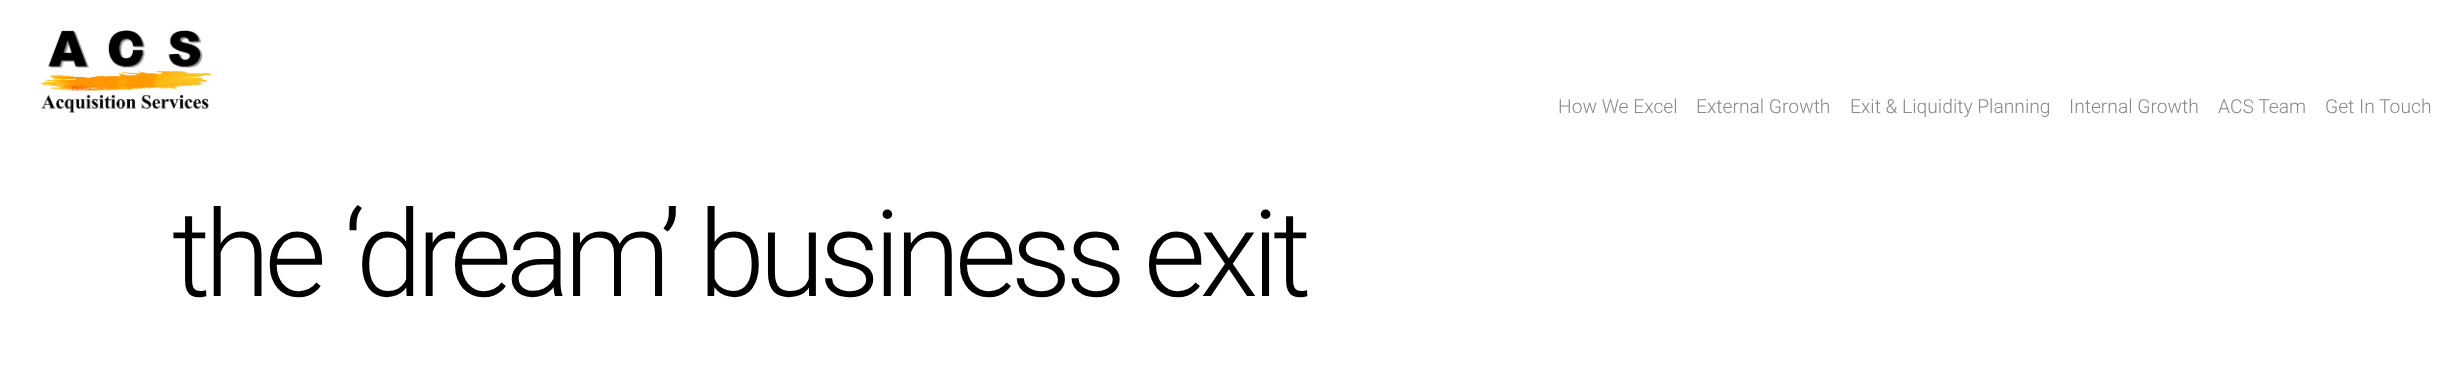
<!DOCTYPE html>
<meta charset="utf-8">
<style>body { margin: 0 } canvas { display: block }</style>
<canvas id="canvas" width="2449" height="377"></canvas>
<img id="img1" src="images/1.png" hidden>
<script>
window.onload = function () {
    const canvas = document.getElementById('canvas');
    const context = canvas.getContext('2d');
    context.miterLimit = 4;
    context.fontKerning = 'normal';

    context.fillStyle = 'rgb(255, 255, 255)';
    context.fillRect(0, 0, 2449, 377);
    context.drawImage(document.getElementById('img1'), 40, 30, 172, 83);
    context.font = '300 19.25px Roboto';
    context.fillStyle = 'rgb(137, 137, 137)';
    context.fillText('How We Excel', 1558, 113);
    context.fillText('External Growth', 1696, 113);
    context.fillText('Exit & Liquidity Planning', 1850, 113);
    context.fillText('Internal Growth', 2069, 113);
    context.fillText('ACS Team', 2218, 113);
    context.fillText('Get In Touch', 2325, 113);
    context.letterSpacing = '-6px';
    context.font = '300 120px Roboto';
    context.fillStyle = 'rgb(0, 0, 0)';
    context.fillText('the ‘dream’ business exit', 172, 296);
};
</script>
